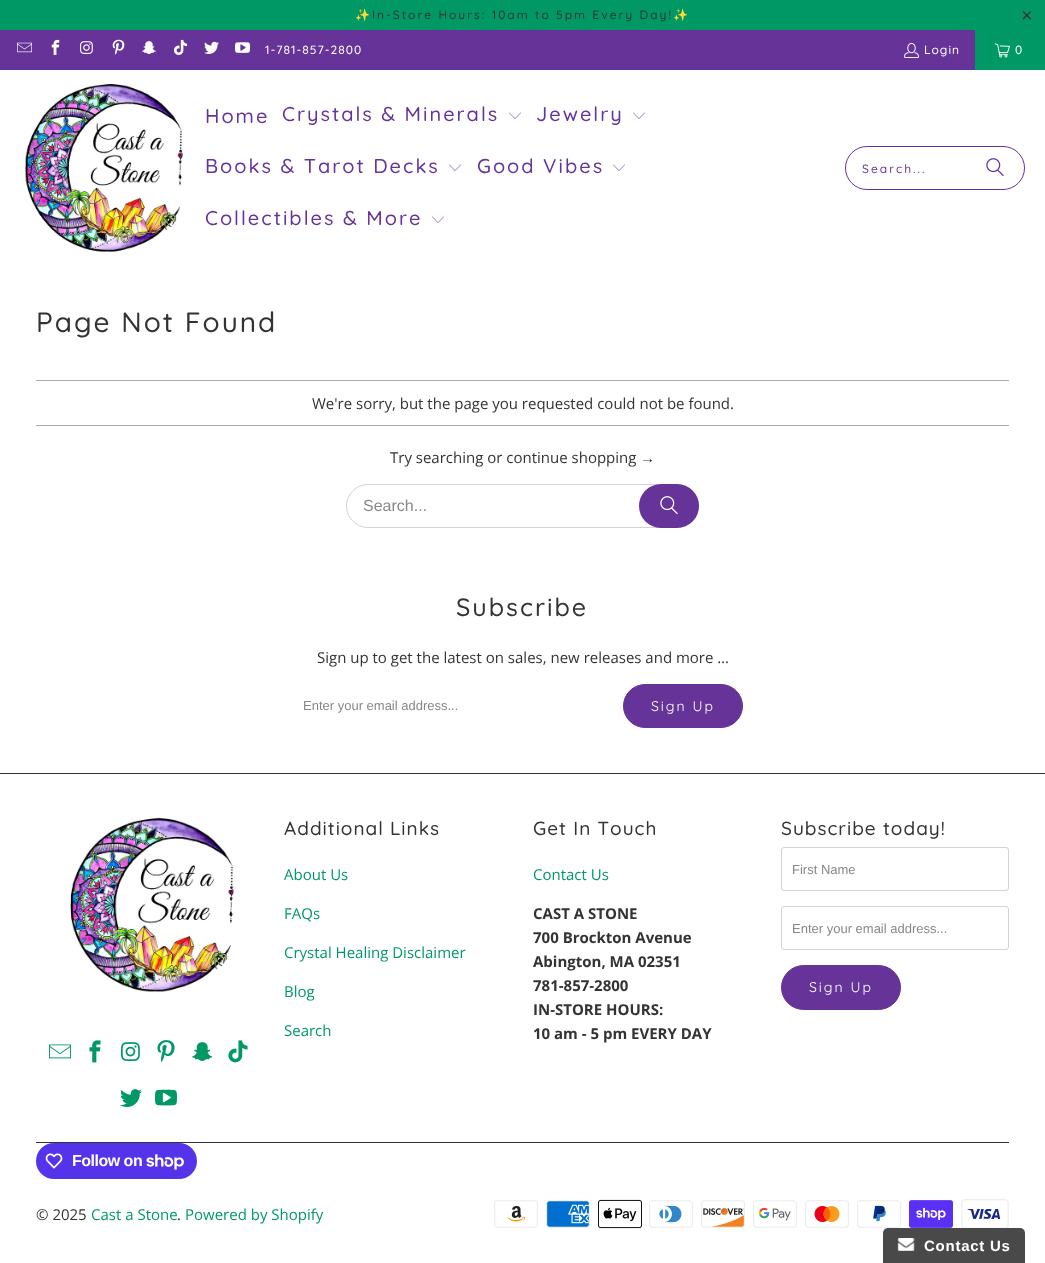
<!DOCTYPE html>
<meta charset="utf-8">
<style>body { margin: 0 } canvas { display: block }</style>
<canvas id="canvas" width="1045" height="1263"></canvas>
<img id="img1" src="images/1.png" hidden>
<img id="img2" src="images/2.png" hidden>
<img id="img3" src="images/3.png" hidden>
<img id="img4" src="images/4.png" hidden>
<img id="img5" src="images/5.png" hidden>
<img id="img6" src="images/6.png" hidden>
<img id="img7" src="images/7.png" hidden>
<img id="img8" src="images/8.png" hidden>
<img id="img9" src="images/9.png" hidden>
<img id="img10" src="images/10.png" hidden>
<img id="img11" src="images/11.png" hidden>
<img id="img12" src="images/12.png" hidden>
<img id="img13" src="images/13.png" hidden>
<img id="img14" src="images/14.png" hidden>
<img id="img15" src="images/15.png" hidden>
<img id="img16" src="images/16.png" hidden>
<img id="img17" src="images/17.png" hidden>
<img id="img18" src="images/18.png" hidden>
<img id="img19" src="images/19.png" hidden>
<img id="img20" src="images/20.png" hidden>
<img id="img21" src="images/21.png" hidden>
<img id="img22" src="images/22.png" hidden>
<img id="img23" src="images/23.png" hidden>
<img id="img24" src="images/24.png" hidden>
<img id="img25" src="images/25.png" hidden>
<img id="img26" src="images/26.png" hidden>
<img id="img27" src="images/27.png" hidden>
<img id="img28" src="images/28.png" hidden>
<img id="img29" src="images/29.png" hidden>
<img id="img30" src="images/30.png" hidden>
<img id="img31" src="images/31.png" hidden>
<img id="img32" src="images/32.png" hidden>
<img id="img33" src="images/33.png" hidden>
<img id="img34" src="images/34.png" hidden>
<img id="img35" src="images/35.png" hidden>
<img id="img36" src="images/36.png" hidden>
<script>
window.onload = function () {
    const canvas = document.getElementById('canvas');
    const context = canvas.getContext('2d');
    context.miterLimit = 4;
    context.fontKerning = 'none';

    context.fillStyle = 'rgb(255, 255, 255)';
    context.fillRect(0, 0, 1045, 1263);
    context.fillStyle = 'rgb(0, 153, 102)';
    context.fillRect(0, 0, 1045, 30);
    context.fillStyle = 'rgb(102, 51, 153)';
    context.fillRect(0, 30, 975, 40);
    context.drawImage(document.getElementById('img1'), 17, 42, 15, 11);
    context.drawImage(document.getElementById('img2'), 51, 39, 9, 16);
    context.drawImage(document.getElementById('img3'), 80, 41, 13, 13);
    context.drawImage(document.getElementById('img4'), 112, 39, 13, 16);
    context.drawImage(document.getElementById('img5'), 142, 41, 14, 13);
    context.drawImage(document.getElementById('img6'), 174, 39, 13, 16);
    context.drawImage(document.getElementById('img7'), 204, 41, 15, 13);
    context.drawImage(document.getElementById('img8'), 235, 42, 15, 11);
    context.drawImage(document.getElementById('img9'), 904, 42, 15, 16);
    context.fillStyle = 'rgb(0, 153, 102)';
    context.fillRect(975, 30, 70, 40);
    context.drawImage(document.getElementById('img10'), 995, 43, 15, 15);
    context.drawImage(document.getElementById('img11'), 24, 83, 159, 170);
    context.drawImage(document.getElementById('img12'), 509, 112, 12, 7);
    context.drawImage(document.getElementById('img12'), 633, 112, 12, 7);
    context.drawImage(document.getElementById('img12'), 449, 164, 12, 7);
    context.drawImage(document.getElementById('img12'), 613, 164, 12, 7);
    context.drawImage(document.getElementById('img12'), 432, 216, 12, 7);
    context.beginPath();
    context.roundRect(845.5, 146.5, 179, 43, 21.5);
    context.strokeStyle = 'rgb(102, 51, 153)';
    context.stroke();
    context.drawImage(document.getElementById('img13'), 986, 158, 18, 19);
    context.fillStyle = 'rgb(170, 170, 170)';
    context.fillRect(36, 380, 973, 1);
    context.fillRect(36, 425, 973, 1);
    context.beginPath();
    context.roundRect(346.5, 484.5, 352, 43, 21.5);
    context.strokeStyle = 'rgb(211, 211, 211)';
    context.stroke();
    context.fillStyle = 'rgb(102, 51, 153)';
    context.beginPath();
    context.roundRect(639, 484, 60, 44, 22);
    context.fill();
    context.drawImage(document.getElementById('img14'), 660, 496, 18, 19);
    context.beginPath();
    context.roundRect(623.5, 684.5, 119, 43, 21.5);
    context.fill();
    context.strokeStyle = 'rgb(102, 51, 153)';
    context.stroke();
    context.fillStyle = 'rgb(51, 51, 51)';
    context.fillRect(0, 773, 1045, 1);
    context.drawImage(document.getElementById('img15'), 70, 817, 164, 176);
    context.drawImage(document.getElementById('img16'), 49, 1044, 22, 15);
    context.drawImage(document.getElementById('img17'), 89, 1040, 12, 23);
    context.drawImage(document.getElementById('img18'), 121, 1042, 19, 19);
    context.drawImage(document.getElementById('img19'), 157, 1040, 18, 22);
    context.drawImage(document.getElementById('img20'), 192, 1042, 21, 19);
    context.drawImage(document.getElementById('img21'), 228, 1040, 20, 23);
    context.drawImage(document.getElementById('img22'), 120, 1089, 22, 18);
    context.drawImage(document.getElementById('img23'), 155, 1089, 22, 17);
    context.beginPath();
    context.roundRect(781.5, 847.5, 227, 43, 2.5);
    context.strokeStyle = 'rgb(211, 211, 211)';
    context.stroke();
    context.beginPath();
    context.roundRect(781.5, 906.5, 227, 43, 2.5);
    context.stroke();
    context.fillStyle = 'rgb(102, 51, 153)';
    context.beginPath();
    context.roundRect(781.5, 965.5, 119, 44, 22);
    context.fill();
    context.strokeStyle = 'rgb(102, 51, 153)';
    context.stroke();
    context.fillStyle = 'rgb(51, 51, 51)';
    context.fillRect(36, 1142, 973, 1);
    context.fillStyle = 'rgb(84, 51, 235)';
    context.beginPath();
    context.roundRect(36, 1143, 161, 36, 18);
    context.fill();
    context.drawImage(document.getElementById('img24'), 45, 1153, 18, 16);
    context.drawImage(document.getElementById('img25'), 146, 1154, 38, 16);
    context.drawImage(document.getElementById('img26'), 494, 1200, 44, 28);
    context.drawImage(document.getElementById('img27'), 546, 1200, 44, 28);
    context.drawImage(document.getElementById('img28'), 598, 1199, 44, 30);
    context.drawImage(document.getElementById('img29'), 649, 1200, 44, 28);
    context.drawImage(document.getElementById('img30'), 701, 1200, 44, 28);
    context.drawImage(document.getElementById('img31'), 753, 1200, 44, 28);
    context.drawImage(document.getElementById('img32'), 805, 1200, 44, 28);
    context.drawImage(document.getElementById('img33'), 857, 1200, 44, 28);
    context.drawImage(document.getElementById('img34'), 909, 1200, 44, 28);
    context.drawImage(document.getElementById('img35'), 961, 1199, 48, 29);
    context.fillStyle = 'rgb(73, 73, 73)';
    context.beginPath();
    context.roundRect(883, 1228, 142, 35, [5, 5, 0, 0]);
    context.fill();
    context.drawImage(document.getElementById('img36'), 897, 1238, 18, 13);
    context.letterSpacing = '2px';
    context.font = '12px Noto Color Emoji';
    context.fillStyle = 'rgb(51, 51, 51)';
    context.fillText('✨', 355, 19);
    context.font = '500 12px Quicksand';
    context.fillText('In-Store Hours: 10am to 5pm Every Day!', 372, 19);
    context.font = '12px Noto Color Emoji';
    context.fillText('✨', 673, 19);
    context.font = '20px Liberation Sans';
    context.fillText('×', 1021, 22);
    context.letterSpacing = '1px';
    context.font = '500 12px Quicksand';
    context.fillStyle = 'rgb(255, 255, 255)';
    context.fillText('1-781-857-2800', 265, 54);
    context.fillText('Login', 924, 54);
    context.fillText('0', 1015, 54);
    context.letterSpacing = '2px';
    context.font = '500 20px Quicksand';
    context.fillStyle = 'rgb(102, 51, 153)';
    context.fillText('Home', 205, 123);
    context.fillText('Crystals & Minerals', 282, 121);
    context.fillText('Jewelry', 536, 121);
    context.fillText('Books & Tarot Decks', 205, 173);
    context.fillText('Good Vibes', 477, 173);
    context.fillText('Collectibles & More', 205, 225);
    context.font = '500 12px Quicksand';
    context.fillText('Search...', 862, 173);
    context.font = '500 28px Quicksand';
    context.fillStyle = 'rgb(51, 51, 51)';
    context.fillText('Page Not Found', 36, 332);
    context.letterSpacing = '0px';
    context.font = '15px Open Sans';
    context.fillText('We\'re sorry, but the page you requested could not be found.', 312, 409);
    context.fillText('Try searching or continue shopping', 390, 463);
    context.font = '15px Liberation Sans';
    context.fillText('→', 640, 463);
    context.font = '16px Liberation Sans';
    context.fillStyle = 'rgb(136, 136, 136)';
    context.fillText('Search...', 363, 511);
    context.letterSpacing = '2px';
    context.font = '500 25px Quicksand';
    context.fillStyle = 'rgb(51, 51, 51)';
    context.fillText('Subscribe', 456, 616);
    context.letterSpacing = '0px';
    context.font = '15px Open Sans';
    context.fillText('Sign up to get the latest on sales, new releases and more …', 317, 663);
    context.font = '13px Liberation Sans';
    context.fillStyle = 'rgb(136, 136, 136)';
    context.fillText('Enter your email address...', 303, 710);
    context.letterSpacing = '2px';
    context.font = '14px Quicksand';
    context.fillStyle = 'rgb(255, 255, 255)';
    context.fillText('Sign Up', 651, 711);
    context.letterSpacing = '1px';
    context.font = '500 19px Quicksand';
    context.fillStyle = 'rgb(51, 51, 51)';
    context.fillText('Additional Links', 284, 835);
    context.letterSpacing = '0px';
    context.font = '15px Open Sans';
    context.fillStyle = 'rgb(0, 153, 102)';
    context.fillText('About Us', 284, 880);
    context.fillText('FAQs', 284, 919);
    context.fillText('Crystal Healing Disclaimer', 284, 958);
    context.fillText('Blog', 284, 997);
    context.fillText('Search', 284, 1036);
    context.letterSpacing = '1px';
    context.font = '500 19px Quicksand';
    context.fillStyle = 'rgb(51, 51, 51)';
    context.fillText('Get In Touch', 533, 835);
    context.letterSpacing = '0px';
    context.font = '15px Open Sans';
    context.fillStyle = 'rgb(0, 153, 102)';
    context.fillText('Contact Us', 533, 880);
    context.font = 'bold 15px Open Sans';
    context.fillStyle = 'rgb(51, 51, 51)';
    context.fillText('CAST A STONE', 533, 919);
    context.fillText('700 Brockton Avenue', 533, 943);
    context.fillText('Abington, MA 02351', 533, 967);
    context.fillText('781-857-2800', 533, 991);
    context.fillText('IN-STORE HOURS:', 533, 1015);
    context.fillText('10 am - 5 pm EVERY DAY', 533, 1039);
    context.letterSpacing = '1px';
    context.font = '500 19px Quicksand';
    context.fillText('Subscribe today!', 781, 835);
    context.letterSpacing = '0px';
    context.font = '13px Liberation Sans';
    context.fillStyle = 'rgb(136, 136, 136)';
    context.fillText('First Name', 792, 874);
    context.fillText('Enter your email address...', 792, 933);
    context.letterSpacing = '2px';
    context.font = '14px Quicksand';
    context.fillStyle = 'rgb(255, 255, 255)';
    context.fillText('Sign Up', 809, 992);
    context.letterSpacing = '-0.5px';
    context.font = 'bold 16px Liberation Sans';
    context.fillText('Follow on', 72, 1166);
    context.letterSpacing = '0px';
    context.font = '15px Open Sans';
    context.fillStyle = 'rgb(51, 51, 51)';
    context.fillText('© 2025', 36, 1220);
    context.fillStyle = 'rgb(0, 153, 102)';
    context.fillText('Cast a Stone', 91, 1220);
    context.fillStyle = 'rgb(51, 51, 51)';
    context.fillText('.', 177, 1220);
    context.fillStyle = 'rgb(0, 153, 102)';
    context.fillText('Powered by Shopify', 185, 1220);
    context.letterSpacing = '0.75px';
    context.font = 'bold 15px Liberation Sans';
    context.fillStyle = 'rgb(255, 255, 255)';
    context.fillText('Contact Us', 924, 1251);
};
</script>
